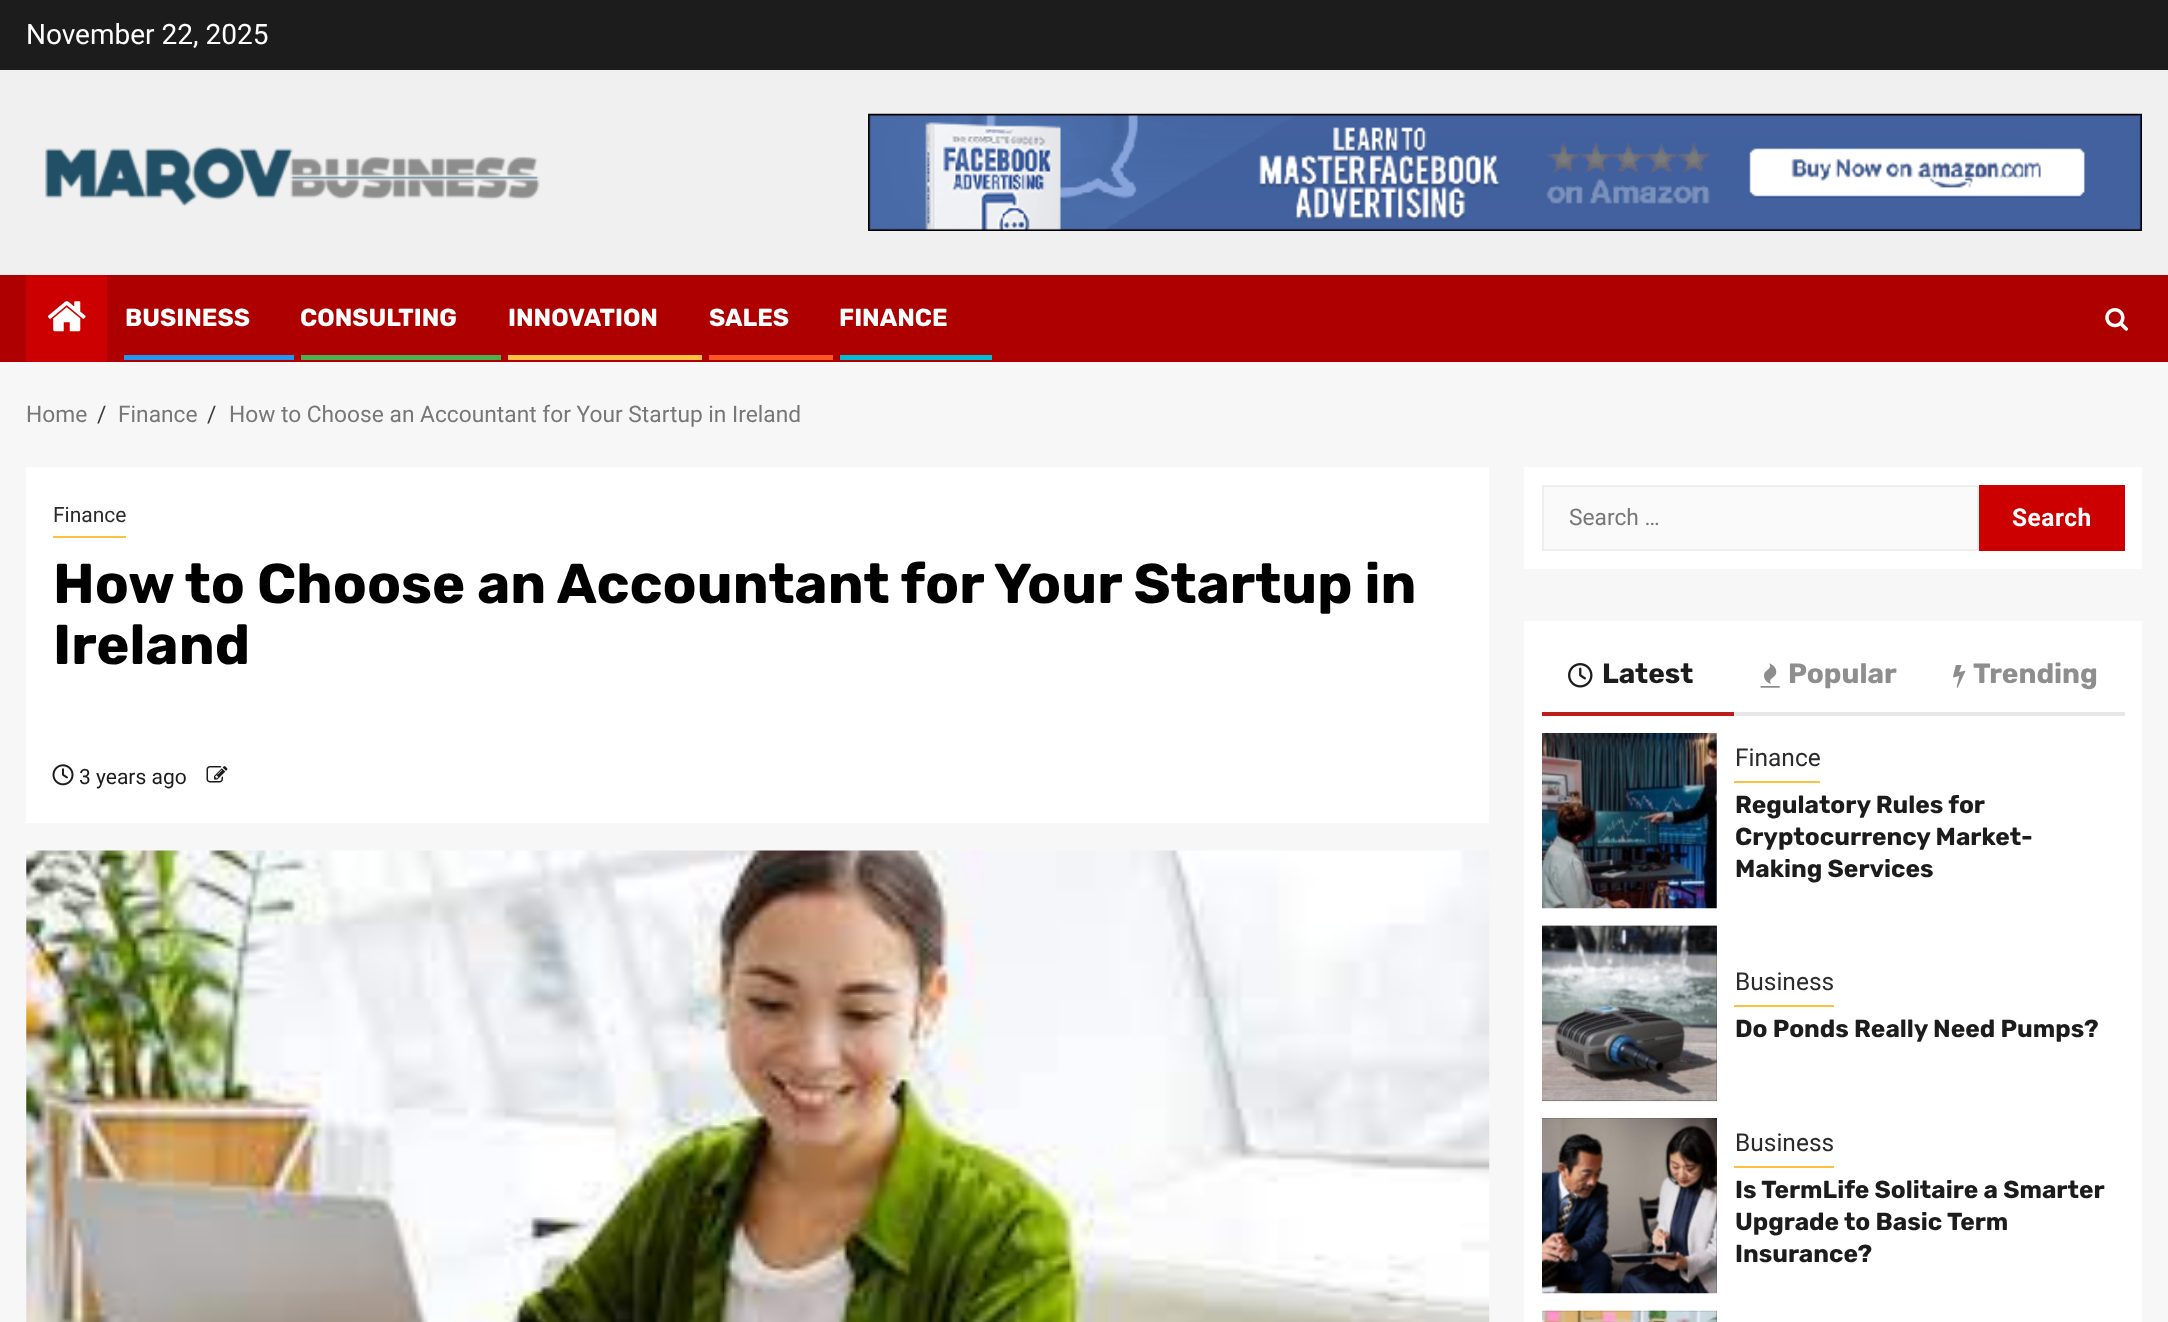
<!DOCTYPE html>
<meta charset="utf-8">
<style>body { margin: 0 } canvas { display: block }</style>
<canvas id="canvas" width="2168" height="1322"></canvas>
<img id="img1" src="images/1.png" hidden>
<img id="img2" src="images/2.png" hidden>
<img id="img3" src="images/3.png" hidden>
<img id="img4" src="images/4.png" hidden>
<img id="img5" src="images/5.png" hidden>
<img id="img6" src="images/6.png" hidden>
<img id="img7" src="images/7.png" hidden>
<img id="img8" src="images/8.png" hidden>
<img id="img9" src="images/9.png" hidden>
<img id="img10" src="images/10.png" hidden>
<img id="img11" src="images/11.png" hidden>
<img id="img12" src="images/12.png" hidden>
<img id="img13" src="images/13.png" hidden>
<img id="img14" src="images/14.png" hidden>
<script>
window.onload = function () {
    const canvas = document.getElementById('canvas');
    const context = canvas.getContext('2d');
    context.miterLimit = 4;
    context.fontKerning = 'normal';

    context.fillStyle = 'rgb(247, 247, 247)';
    context.fillRect(0, 0, 2168, 1322);
    context.fillStyle = 'rgb(240, 240, 240)';
    context.fillRect(0, 70, 2168, 205);
    context.fillStyle = 'rgb(28, 28, 28)';
    context.fillRect(0, 0, 2168, 70);
    context.drawImage(document.getElementById('img1'), 45, 146, 495, 61);
    context.drawImage(document.getElementById('img2'), 868, 113, 1274, 118);
    context.fillStyle = 'rgb(175, 0, 0)';
    context.fillRect(0, 275, 2168, 87);
    context.fillStyle = 'rgb(204, 0, 0)';
    context.fillRect(26, 275, 81, 87);
    context.drawImage(document.getElementById('img3'), 47, 301, 39, 31);
    context.fillStyle = 'rgb(33, 150, 243)';
    context.fillRect(124, 355, 170, 5);
    context.fillStyle = 'rgb(76, 175, 80)';
    context.fillRect(301, 355, 200, 5);
    context.fillStyle = 'rgb(255, 191, 63)';
    context.fillRect(508, 355, 194, 5);
    context.fillStyle = 'rgb(255, 87, 34)';
    context.fillRect(709, 355, 124, 5);
    context.fillStyle = 'rgb(0, 188, 212)';
    context.fillRect(840, 355, 152, 5);
    context.drawImage(document.getElementById('img4'), 2105, 308, 23, 23);
    context.fillStyle = 'rgb(255, 255, 255)';
    context.fillRect(26, 467, 1463, 356);
    context.fillStyle = 'rgb(255, 191, 63)';
    context.fillRect(53, 536, 73, 2);
    context.drawImage(document.getElementById('img5'), 52, 764, 22, 22);
    context.drawImage(document.getElementById('img6'), 206, 766, 22, 17);
    context.drawImage(document.getElementById('img7'), 26, 850, 1464, 472);
    context.fillStyle = 'rgb(255, 255, 255)';
    context.fillRect(1524, 467, 618, 102);
    context.fillStyle = 'rgb(250, 250, 250)';
    context.beginPath();
    context.rect(1543, 486, 435, 64);
    context.fill();
    context.strokeStyle = 'rgb(238, 238, 238)';
    context.lineWidth = 2;
    context.stroke();
    context.fillStyle = 'rgb(204, 0, 0)';
    context.fillRect(1979, 485, 146, 66);
    context.fillStyle = 'rgb(255, 255, 255)';
    context.fillRect(1524, 621, 618, 701);
    context.fillStyle = 'rgb(231, 231, 231)';
    context.fillRect(1734, 712, 391, 4);
    context.fillStyle = 'rgb(191, 27, 27)';
    context.fillRect(1542, 712, 192, 4);
    context.drawImage(document.getElementById('img8'), 1568, 663, 25, 25);
    context.drawImage(document.getElementById('img9'), 1760, 663, 20, 25);
    context.drawImage(document.getElementById('img10'), 1953, 665, 13, 23);
    context.drawImage(document.getElementById('img11'), 1542, 733, 175, 176);
    context.fillStyle = 'rgb(255, 191, 63)';
    context.fillRect(1734, 781, 86, 2);
    context.fillStyle = 'rgb(64, 64, 64)';
    context.fillRect(1542, 926, 175, 175);
    context.drawImage(document.getElementById('img12'), 1542, 925, 175, 177);
    context.fillStyle = 'rgb(255, 191, 63)';
    context.fillRect(1734, 1005, 100, 2);
    context.fillStyle = 'rgb(64, 64, 64)';
    context.fillRect(1542, 1118, 175, 175);
    context.drawImage(document.getElementById('img13'), 1542, 1118, 175, 176);
    context.fillStyle = 'rgb(255, 191, 63)';
    context.fillRect(1734, 1166, 100, 2);
    context.fillStyle = 'rgb(64, 64, 64)';
    context.fillRect(1542, 1311, 175, 11);
    context.drawImage(document.getElementById('img14'), 1542, 1310, 175, 12);
    context.font = '28px Roboto';
    context.fillStyle = 'rgb(255, 255, 255)';
    context.fillText('November 22, 2025', 26, 44);
    context.font = 'bold 24.5px Rubik';
    context.fillText('BUSINESS', 125, 326);
    context.fillText('CONSULTING', 300, 326);
    context.fillText('INNOVATION', 508, 326);
    context.fillText('SALES', 709, 326);
    context.fillText('FINANCE', 839, 326);
    context.font = '22.75px Roboto';
    context.fillStyle = 'rgb(119, 119, 119)';
    context.fillText('Home', 26, 422);
    context.fillStyle = 'rgb(57, 62, 70)';
    context.fillText('/', 97, 422);
    context.fillStyle = 'rgb(119, 119, 119)';
    context.fillText('Finance', 118, 422);
    context.fillStyle = 'rgb(57, 62, 70)';
    context.fillText('/', 207, 422);
    context.fillStyle = 'rgb(119, 119, 119)';
    context.fillText('How to Choose an Accountant for Your Startup in Ireland', 229, 422);
    context.font = '21px Roboto';
    context.fillStyle = 'rgb(43, 43, 43)';
    context.fillText('Finance', 53, 522);
    context.font = 'bold 56px Rubik';
    context.fillStyle = 'rgb(0, 0, 0)';
    context.fillText('How to Choose an Accountant for Your Startup in', 53, 603);
    context.fillText('Ireland', 53, 664);
    context.font = '21px Roboto';
    context.fillStyle = 'rgb(28, 28, 28)';
    context.fillText('3 years ago', 79, 784);
    context.font = '22.75px Roboto';
    context.fillStyle = 'rgb(119, 119, 119)';
    context.fillText('Search …', 1569, 525);
    context.letterSpacing = '0.5px';
    context.font = 'bold 24.5px Roboto';
    context.fillStyle = 'rgb(255, 255, 255)';
    context.fillText('Search', 2012, 526);
    context.letterSpacing = '0px';
    context.font = 'bold 28px Rubik';
    context.fillStyle = 'rgb(28, 28, 28)';
    context.fillText('Latest', 1602, 683);
    context.fillStyle = 'rgb(142, 142, 142)';
    context.fillText('Popular', 1788, 683);
    context.fillText('Trending', 1973, 683);
    context.font = '24.5px Roboto';
    context.fillStyle = 'rgb(43, 43, 43)';
    context.fillText('Finance', 1735, 766);
    context.font = 'bold 24.5px Rubik';
    context.fillStyle = 'rgb(28, 28, 28)';
    context.fillText('Regulatory Rules for', 1735, 813);
    context.fillText('Cryptocurrency Market-', 1735, 845);
    context.fillText('Making Services', 1735, 877);
    context.font = '24.5px Roboto';
    context.fillStyle = 'rgb(43, 43, 43)';
    context.fillText('Business', 1735, 990);
    context.font = 'bold 24.5px Rubik';
    context.fillStyle = 'rgb(28, 28, 28)';
    context.fillText('Do Ponds Really Need Pumps?', 1735, 1037);
    context.font = '24.5px Roboto';
    context.fillStyle = 'rgb(43, 43, 43)';
    context.fillText('Business', 1735, 1151);
    context.font = 'bold 24.5px Rubik';
    context.fillStyle = 'rgb(28, 28, 28)';
    context.fillText('Is TermLife Solitaire a Smarter', 1735, 1198);
    context.fillText('Upgrade to Basic Term', 1735, 1230);
    context.fillText('Insurance?', 1735, 1262);
};
</script>
